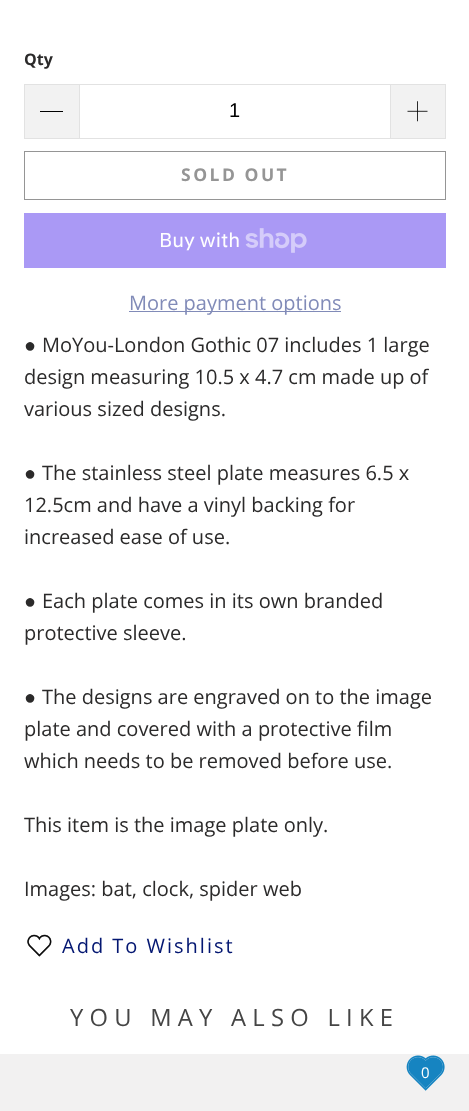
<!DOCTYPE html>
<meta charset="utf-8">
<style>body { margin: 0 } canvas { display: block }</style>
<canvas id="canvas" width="469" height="1111"></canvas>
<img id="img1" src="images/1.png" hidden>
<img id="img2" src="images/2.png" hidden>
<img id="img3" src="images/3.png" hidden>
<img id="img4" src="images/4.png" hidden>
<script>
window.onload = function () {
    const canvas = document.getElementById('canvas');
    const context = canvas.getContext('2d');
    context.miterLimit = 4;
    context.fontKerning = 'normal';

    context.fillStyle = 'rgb(255, 255, 255)';
    context.fillRect(0, 0, 469, 1111);
    context.fillStyle = 'rgb(242, 242, 242)';
    context.fillRect(25, 85, 54, 53);
    context.fillStyle = 'rgb(226, 226, 226)';
    context.fillRect(24, 84, 55, 1);
    context.fillRect(24, 138, 55, 1);
    context.fillRect(24, 84, 1, 55);
    context.fillStyle = 'rgb(0, 0, 0)';
    context.fillRect(40, 111, 23, 1);
    context.strokeStyle = 'rgb(226, 226, 226)';
    context.strokeRect(79.5, 84.5, 311, 54);
    context.fillStyle = 'rgb(242, 242, 242)';
    context.fillRect(391, 85, 54, 53);
    context.fillStyle = 'rgb(226, 226, 226)';
    context.fillRect(391, 84, 55, 1);
    context.fillRect(445, 84, 1, 55);
    context.fillRect(391, 138, 55, 1);
    context.drawImage(document.getElementById('img1'), 407, 101, 21, 21);
    context.strokeStyle = 'rgb(149, 149, 149)';
    context.strokeRect(24.5, 151.5, 421, 48);
    context.fillStyle = 'rgb(170, 153, 245)';
    context.fillRect(24, 213, 422, 55);
    context.drawImage(document.getElementById('img2'), 245, 228, 62, 25);
    context.fillStyle = 'rgb(129, 139, 184)';
    context.fillRect(129, 311, 212, 1);
    context.drawImage(document.getElementById('img3'), 27, 934, 25, 23);
    context.fillStyle = 'rgb(242, 241, 241)';
    context.fillRect(0, 1054, 469, 57);
    context.drawImage(document.getElementById('img4'), 406, 1055, 39, 36);
    context.font = 'bold 16px Open Sans';
    context.fillStyle = 'rgb(43, 42, 42)';
    context.fillText('Qty', 24, 65);
    context.font = '20px Liberation Sans';
    context.fillStyle = 'rgb(0, 0, 0)';
    context.fillText('1', 229, 117);
    context.letterSpacing = '2.5px';
    context.font = 'bold 17.5px Open Sans';
    context.fillStyle = 'rgb(149, 149, 149)';
    context.fillText('SOLD OUT', 181, 181);
    context.letterSpacing = '0px';
    context.font = '20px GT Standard';
    context.fillStyle = 'rgb(255, 255, 255)';
    context.fillText('Buy with', 159, 247);
    context.font = '20px Open Sans';
    context.fillStyle = 'rgb(129, 139, 184)';
    context.fillText('More payment options', 129, 310);
    context.font = '20px Liberation Sans';
    context.fillStyle = 'rgb(43, 42, 42)';
    context.fillText('●', 24, 352);
    context.font = '20px Open Sans';
    context.fillText('MoYou-London Gothic 07 includes 1 large', 42, 352);
    context.fillText('design measuring 10.5 x 4.7 cm made up of', 24, 384);
    context.fillText('various sized designs.', 24, 416);
    context.font = '20px Liberation Sans';
    context.fillText('●', 24, 480);
    context.font = '20px Open Sans';
    context.fillText('The stainless steel plate measures 6.5 x', 42, 480);
    context.fillText('12.5cm and have a vinyl backing for', 24, 512);
    context.fillText('increased ease of use.', 24, 544);
    context.font = '20px Liberation Sans';
    context.fillText('●', 24, 608);
    context.font = '20px Open Sans';
    context.fillText('Each plate comes in its own branded', 42, 608);
    context.fillText('protective sleeve.', 24, 640);
    context.font = '20px Liberation Sans';
    context.fillText('●', 24, 704);
    context.font = '20px Open Sans';
    context.fillText('The designs are engraved on to the image', 42, 704);
    context.fillText('plate and covered with a protective film', 24, 736);
    context.fillText('which needs to be removed before use.', 24, 768);
    context.fillText('This item is the image plate only.', 24, 832);
    context.fillText('Images: bat, clock, spider web', 24, 896);
    context.letterSpacing = '2px';
    context.fillStyle = 'rgb(3, 22, 113)';
    context.fillText('Add To Wishlist', 62, 953);
    context.letterSpacing = '6.25px';
    context.font = '23.75px Open Sans';
    context.fillStyle = 'rgb(69, 69, 69)';
    context.fillText('YOU MAY ALSO LIKE', 70, 1026);
    context.letterSpacing = '0px';
    context.font = '15px Open Sans';
    context.fillStyle = 'rgb(255, 255, 255)';
    context.fillText('0', 421, 1078);
};
</script>
